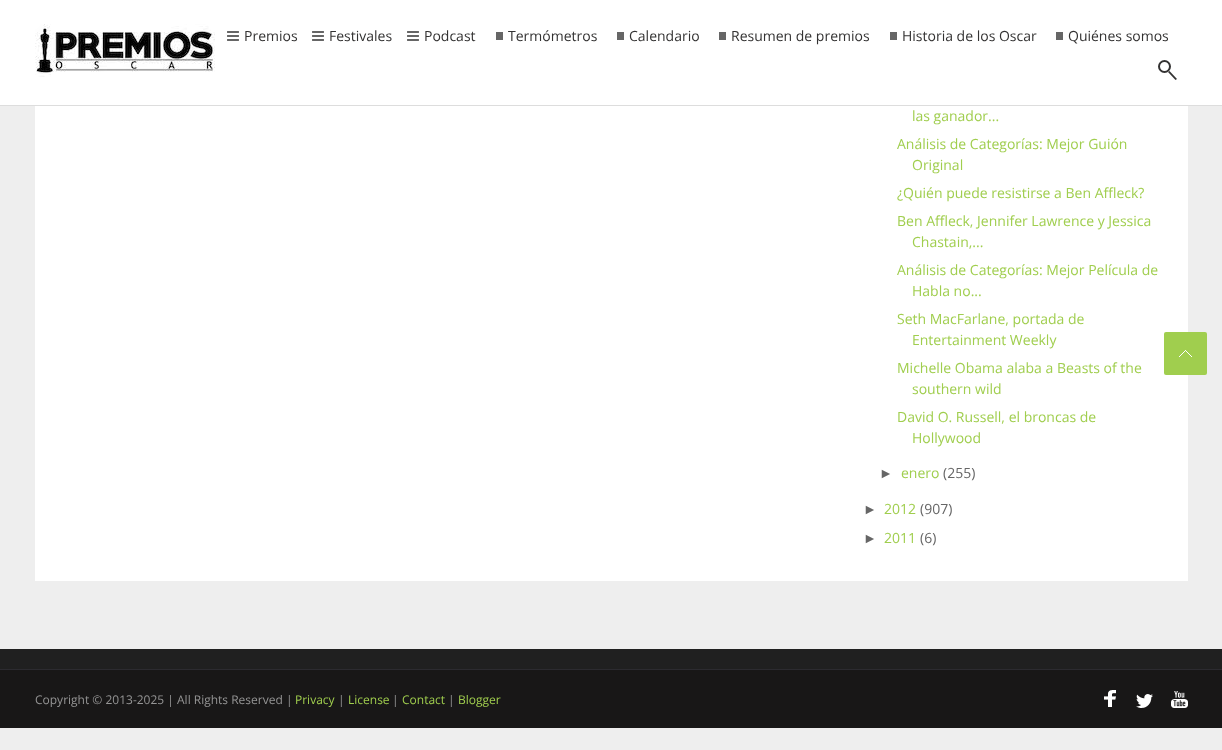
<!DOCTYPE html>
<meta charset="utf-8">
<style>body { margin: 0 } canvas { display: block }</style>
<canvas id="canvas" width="1222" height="750"></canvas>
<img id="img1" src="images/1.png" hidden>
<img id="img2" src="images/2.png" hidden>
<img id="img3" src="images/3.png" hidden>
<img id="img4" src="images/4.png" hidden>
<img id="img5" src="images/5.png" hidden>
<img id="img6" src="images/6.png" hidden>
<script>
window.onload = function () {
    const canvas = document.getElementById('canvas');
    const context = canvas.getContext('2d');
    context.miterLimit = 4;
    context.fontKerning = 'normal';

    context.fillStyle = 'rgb(238, 238, 238)';
    context.fillRect(0, 0, 1222, 750);
    context.fillStyle = 'rgb(255, 255, 255)';
    context.fillRect(0, 0, 1222, 105);
    context.fillStyle = 'rgb(221, 221, 221)';
    context.fillRect(0, 105, 1222, 1);
    context.drawImage(document.getElementById('img1'), 35, 24, 180, 53);
    context.drawImage(document.getElementById('img2'), 227, 31, 12, 10);
    context.drawImage(document.getElementById('img2'), 312, 31, 12, 10);
    context.drawImage(document.getElementById('img2'), 407, 31, 12, 10);
    context.fillStyle = 'rgb(102, 102, 102)';
    context.fillRect(496, 32, 7, 8);
    context.fillRect(617, 32, 7, 8);
    context.fillRect(719, 32, 7, 8);
    context.fillRect(890, 32, 7, 8);
    context.fillRect(1056, 32, 7, 8);
    context.beginPath();
    context.arc(1164.5, 66.5, 5.5, 0, 2 * Math.PI);
    context.strokeStyle = 'rgb(51, 50, 50)';
    context.lineWidth = 2;
    context.stroke();
    context.fillStyle = 'rgb(51, 50, 50)';
    context.beginPath();
    context.moveTo(1168, 72);
    context.lineTo(1169.5, 71);
    context.lineTo(1177, 79);
    context.lineTo(1175.5, 80);
    context.closePath();
    context.fill();
    context.fillStyle = 'rgb(255, 255, 255)';
    context.fillRect(35, 106, 1153, 475);
    context.fillStyle = 'rgb(32, 32, 32)';
    context.fillRect(0, 649, 1222, 20);
    context.fillStyle = 'rgb(24, 23, 23)';
    context.fillRect(0, 670, 1222, 58);
    context.fillStyle = 'rgb(44, 43, 48)';
    context.fillRect(0, 669, 1222, 1);
    context.drawImage(document.getElementById('img3'), 1104, 690, 12, 17);
    context.drawImage(document.getElementById('img4'), 1136, 694, 17, 14);
    context.drawImage(document.getElementById('img5'), 1171, 691, 17, 17);
    context.fillStyle = 'rgb(160, 206, 78)';
    context.beginPath();
    context.roundRect(1164, 332, 43, 43, 2);
    context.fill();
    context.drawImage(document.getElementById('img6'), 1179, 350, 13, 7);
    context.font = '14px Open Sans';
    context.fillStyle = 'rgb(51, 50, 50)';
    context.fillText('Premios', 244, 41);
    context.fillText('Festivales', 329, 41);
    context.fillText('Podcast', 424, 41);
    context.fillText('Termómetros', 508, 41);
    context.fillText('Calendario', 629, 41);
    context.fillText('Resumen de premios', 731, 41);
    context.fillText('Historia de los Oscar', 902, 41);
    context.fillText('Quiénes somos', 1068, 41);
    context.fillStyle = 'rgb(160, 206, 78)';
    context.fillText('las ganador...', 912, 121);
    context.fillText('Análisis de Categorías: Mejor Guión', 897, 149);
    context.fillText('Original', 912, 170);
    context.fillText('¿Quién puede resistirse a Ben Affleck?', 897, 198);
    context.fillText('Ben Affleck, Jennifer Lawrence y Jessica', 897, 226);
    context.fillText('Chastain,...', 912, 247);
    context.fillText('Análisis de Categorías: Mejor Película de', 897, 275);
    context.fillText('Habla no...', 912, 296);
    context.fillText('Seth MacFarlane, portada de', 897, 324);
    context.fillText('Entertainment Weekly', 912, 345);
    context.fillText('Michelle Obama alaba a Beasts of the', 897, 373);
    context.fillText('southern wild', 912, 394);
    context.fillText('David O. Russell, el broncas de', 897, 422);
    context.fillText('Hollywood', 912, 443);
    context.font = '14px Liberation Sans';
    context.fillStyle = 'rgb(102, 102, 102)';
    context.fillText('►', 879, 478);
    context.font = '14px Open Sans';
    context.fillStyle = 'rgb(160, 206, 78)';
    context.fillText('enero', 901, 478);
    context.fillStyle = 'rgb(102, 102, 102)';
    context.fillText('(255)', 943, 478);
    context.font = '14px Liberation Sans';
    context.fillText('►', 863, 514);
    context.font = '14px Open Sans';
    context.fillStyle = 'rgb(160, 206, 78)';
    context.fillText('2012', 884, 514);
    context.fillStyle = 'rgb(102, 102, 102)';
    context.fillText('(907)', 920, 514);
    context.font = '14px Liberation Sans';
    context.fillText('►', 863, 543);
    context.font = '14px Open Sans';
    context.fillStyle = 'rgb(160, 206, 78)';
    context.fillText('2011', 884, 543);
    context.fillStyle = 'rgb(102, 102, 102)';
    context.fillText('(6)', 920, 543);
    context.font = '12px Open Sans';
    context.fillStyle = 'rgb(149, 149, 149)';
    context.fillText('Copyright © 2013-2025 | All Rights Reserved |', 35, 704);
    context.fillStyle = 'rgb(160, 206, 78)';
    context.fillText('Privacy', 295, 704);
    context.fillStyle = 'rgb(149, 149, 149)';
    context.fillText('|', 338, 704);
    context.fillStyle = 'rgb(160, 206, 78)';
    context.fillText('License', 348, 704);
    context.fillStyle = 'rgb(149, 149, 149)';
    context.fillText('|', 392, 704);
    context.fillStyle = 'rgb(160, 206, 78)';
    context.fillText('Contact', 402, 704);
    context.fillStyle = 'rgb(149, 149, 149)';
    context.fillText('|', 448, 704);
    context.fillStyle = 'rgb(160, 206, 78)';
    context.fillText('Blogger', 458, 704);
};
</script>
